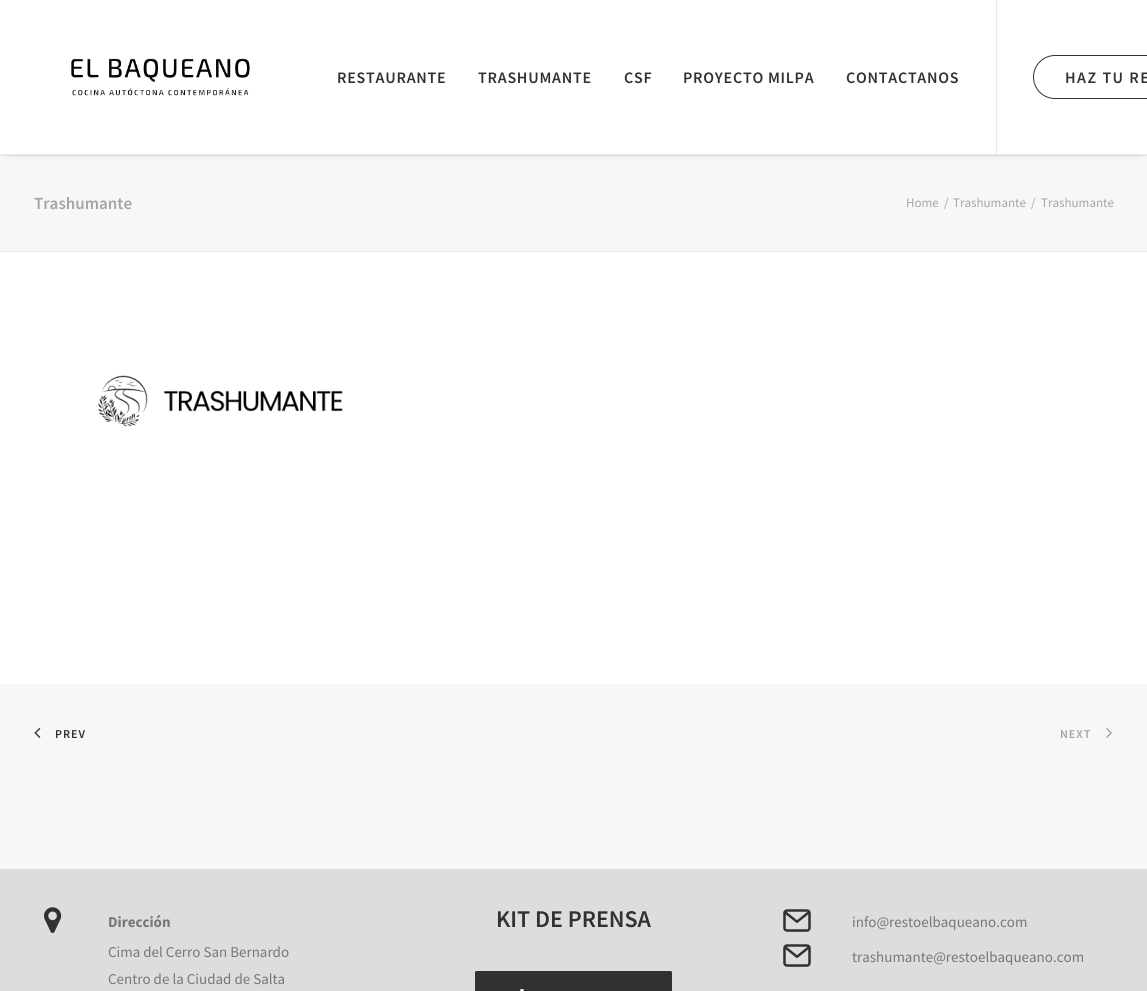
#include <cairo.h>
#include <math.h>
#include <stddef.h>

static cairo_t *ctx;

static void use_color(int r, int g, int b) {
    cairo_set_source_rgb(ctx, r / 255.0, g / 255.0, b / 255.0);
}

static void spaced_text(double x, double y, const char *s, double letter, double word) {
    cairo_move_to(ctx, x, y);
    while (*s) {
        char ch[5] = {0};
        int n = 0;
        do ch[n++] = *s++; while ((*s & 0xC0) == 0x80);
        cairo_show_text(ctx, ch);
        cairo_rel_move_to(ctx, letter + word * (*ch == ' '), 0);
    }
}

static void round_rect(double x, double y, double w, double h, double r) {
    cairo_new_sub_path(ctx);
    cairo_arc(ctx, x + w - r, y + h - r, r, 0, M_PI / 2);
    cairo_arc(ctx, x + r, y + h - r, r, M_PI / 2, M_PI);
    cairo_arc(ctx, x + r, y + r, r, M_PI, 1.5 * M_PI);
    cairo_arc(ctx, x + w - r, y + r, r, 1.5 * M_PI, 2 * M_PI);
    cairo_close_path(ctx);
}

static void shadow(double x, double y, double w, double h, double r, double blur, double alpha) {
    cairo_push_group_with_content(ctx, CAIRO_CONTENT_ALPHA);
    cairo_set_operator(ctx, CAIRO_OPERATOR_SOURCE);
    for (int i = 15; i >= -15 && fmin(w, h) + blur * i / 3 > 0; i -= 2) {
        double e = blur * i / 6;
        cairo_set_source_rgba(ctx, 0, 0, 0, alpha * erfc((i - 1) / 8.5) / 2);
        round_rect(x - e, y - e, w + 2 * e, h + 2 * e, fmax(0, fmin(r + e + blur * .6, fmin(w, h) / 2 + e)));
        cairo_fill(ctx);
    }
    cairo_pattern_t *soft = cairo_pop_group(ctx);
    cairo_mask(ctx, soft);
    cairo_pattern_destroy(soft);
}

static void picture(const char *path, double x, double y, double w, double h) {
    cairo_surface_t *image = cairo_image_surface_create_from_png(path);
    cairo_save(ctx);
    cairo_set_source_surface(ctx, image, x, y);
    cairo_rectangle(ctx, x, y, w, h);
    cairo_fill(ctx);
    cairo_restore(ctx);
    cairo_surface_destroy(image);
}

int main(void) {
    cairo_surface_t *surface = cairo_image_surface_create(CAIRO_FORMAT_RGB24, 1147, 991);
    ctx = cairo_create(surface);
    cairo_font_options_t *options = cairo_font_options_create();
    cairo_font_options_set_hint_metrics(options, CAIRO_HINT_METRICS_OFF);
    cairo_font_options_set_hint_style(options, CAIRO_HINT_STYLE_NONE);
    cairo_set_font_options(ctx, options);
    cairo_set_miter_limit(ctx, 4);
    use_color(247, 247, 247);
    cairo_paint(ctx);
    use_color(234, 234, 234);
    cairo_rectangle(ctx, 0, 155, 1147, 1);
    cairo_fill(ctx);
    use_color(0, 0, 0);
    shadow(8, 14, 1132, 135, 0, 5, 0.6);
    use_color(255, 255, 255);
    cairo_rectangle(ctx, 0, 0, 1147, 154);
    cairo_fill(ctx);
    use_color(234, 234, 234);
    cairo_rectangle(ctx, 0, 154, 1147, 1);
    cairo_fill(ctx);
    picture("img1.png", 71, 58, 179, 38);
    cairo_select_font_face(ctx, "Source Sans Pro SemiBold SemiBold", CAIRO_FONT_SLANT_NORMAL, CAIRO_FONT_WEIGHT_NORMAL);
    cairo_set_font_size(ctx, 16);
    use_color(48, 49, 51);
    spaced_text(337, 83, "RESTAURANTE", 0.75, 0);
    spaced_text(478, 83, "TRASHUMANTE", 0.75, 0);
    spaced_text(624, 83, "CSF", 0.75, 0);
    spaced_text(683, 83, "PROYECTO MILPA", 0.75, 0);
    spaced_text(846, 83, "CONTACTANOS", 0.75, 0);
    use_color(234, 234, 234);
    cairo_rectangle(ctx, 996, 0, 1, 154);
    cairo_fill(ctx);
    round_rect(1033.5, 55.5, 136, 43, 21.5);
    use_color(48, 49, 51);
    cairo_set_line_width(ctx, 1);
    cairo_stroke(ctx);
    spaced_text(1065, 83, "HAZ TU RE", 1.5, 0);
    use_color(234, 234, 234);
    cairo_rectangle(ctx, 0, 251, 1147, 1);
    cairo_fill(ctx);
    cairo_set_font_size(ctx, 17);
    use_color(164, 164, 164);
    cairo_move_to(ctx, 34, 209);
    cairo_show_text(ctx, "Trashumante");
    cairo_select_font_face(ctx, "Source Sans Pro", CAIRO_FONT_SLANT_NORMAL, CAIRO_FONT_WEIGHT_NORMAL);
    cairo_set_font_size(ctx, 13);
    cairo_move_to(ctx, 906, 207);
    cairo_show_text(ctx, "Home");
    cairo_move_to(ctx, 944, 207);
    cairo_show_text(ctx, "/");
    cairo_move_to(ctx, 953, 207);
    cairo_show_text(ctx, "Trashumante");
    cairo_move_to(ctx, 1031, 207);
    cairo_show_text(ctx, "/");
    cairo_move_to(ctx, 1041, 207);
    cairo_show_text(ctx, "Trashumante");
    use_color(255, 255, 255);
    cairo_rectangle(ctx, 0, 252, 1147, 432);
    cairo_fill(ctx);
    picture("img2.png", 98, 375, 245, 52);
    picture("img3.png", 34, 727, 7, 11);
    cairo_select_font_face(ctx, "Source Sans Pro SemiBold SemiBold", CAIRO_FONT_SLANT_NORMAL, CAIRO_FONT_WEIGHT_NORMAL);
    cairo_set_font_size(ctx, 12);
    use_color(48, 49, 51);
    spaced_text(55, 738, "PREV", 1, 0);
    use_color(164, 164, 164);
    spaced_text(1060, 738, "NEXT", 1, 0);
    picture("img4.png", 1106, 728, 6, 10);
    use_color(221, 221, 221);
    cairo_rectangle(ctx, 0, 869, 1147, 122);
    cairo_fill(ctx);
    picture("img5.png", 44, 907, 18, 26);
    cairo_select_font_face(ctx, "Source Sans Pro", CAIRO_FONT_SLANT_NORMAL, CAIRO_FONT_WEIGHT_BOLD);
    cairo_set_font_size(ctx, 15);
    use_color(119, 119, 119);
    cairo_move_to(ctx, 108, 927);
    cairo_show_text(ctx, "Dirección");
    cairo_select_font_face(ctx, "Source Sans Pro", CAIRO_FONT_SLANT_NORMAL, CAIRO_FONT_WEIGHT_NORMAL);
    cairo_move_to(ctx, 108, 957);
    cairo_show_text(ctx, "Cima del Cerro San Bernardo");
    cairo_move_to(ctx, 108, 984);
    cairo_show_text(ctx, "Centro de la Ciudad de Salta");
    cairo_select_font_face(ctx, "Source Sans Pro SemiBold SemiBold", CAIRO_FONT_SLANT_NORMAL, CAIRO_FONT_WEIGHT_NORMAL);
    cairo_set_font_size(ctx, 24);
    use_color(48, 49, 51);
    cairo_move_to(ctx, 496, 927);
    cairo_show_text(ctx, "KIT DE PRENSA");
    round_rect(475.5, 971.5, 196, 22, 1.5);
    cairo_fill_preserve(ctx);
    cairo_stroke(ctx);
    picture("img6.png", 520, 989, 4, 2);
    round_rect(475.5, 971.5, 196, 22, 1.5);
    cairo_stroke(ctx);
    picture("img7.png", 783, 909, 28, 23);
    cairo_select_font_face(ctx, "Source Sans Pro", CAIRO_FONT_SLANT_NORMAL, CAIRO_FONT_WEIGHT_NORMAL);
    cairo_set_font_size(ctx, 15);
    use_color(119, 119, 119);
    cairo_move_to(ctx, 852, 927);
    cairo_show_text(ctx, "info@restoelbaqueano.com");
    picture("img7.png", 783, 944, 28, 23);
    cairo_move_to(ctx, 852, 962);
    cairo_show_text(ctx, "trashumante@restoelbaqueano.com");
    cairo_surface_write_to_png(surface, "result.png");
    cairo_font_options_destroy(options);
    cairo_destroy(ctx);
    cairo_surface_destroy(surface);
    return 0;
}
